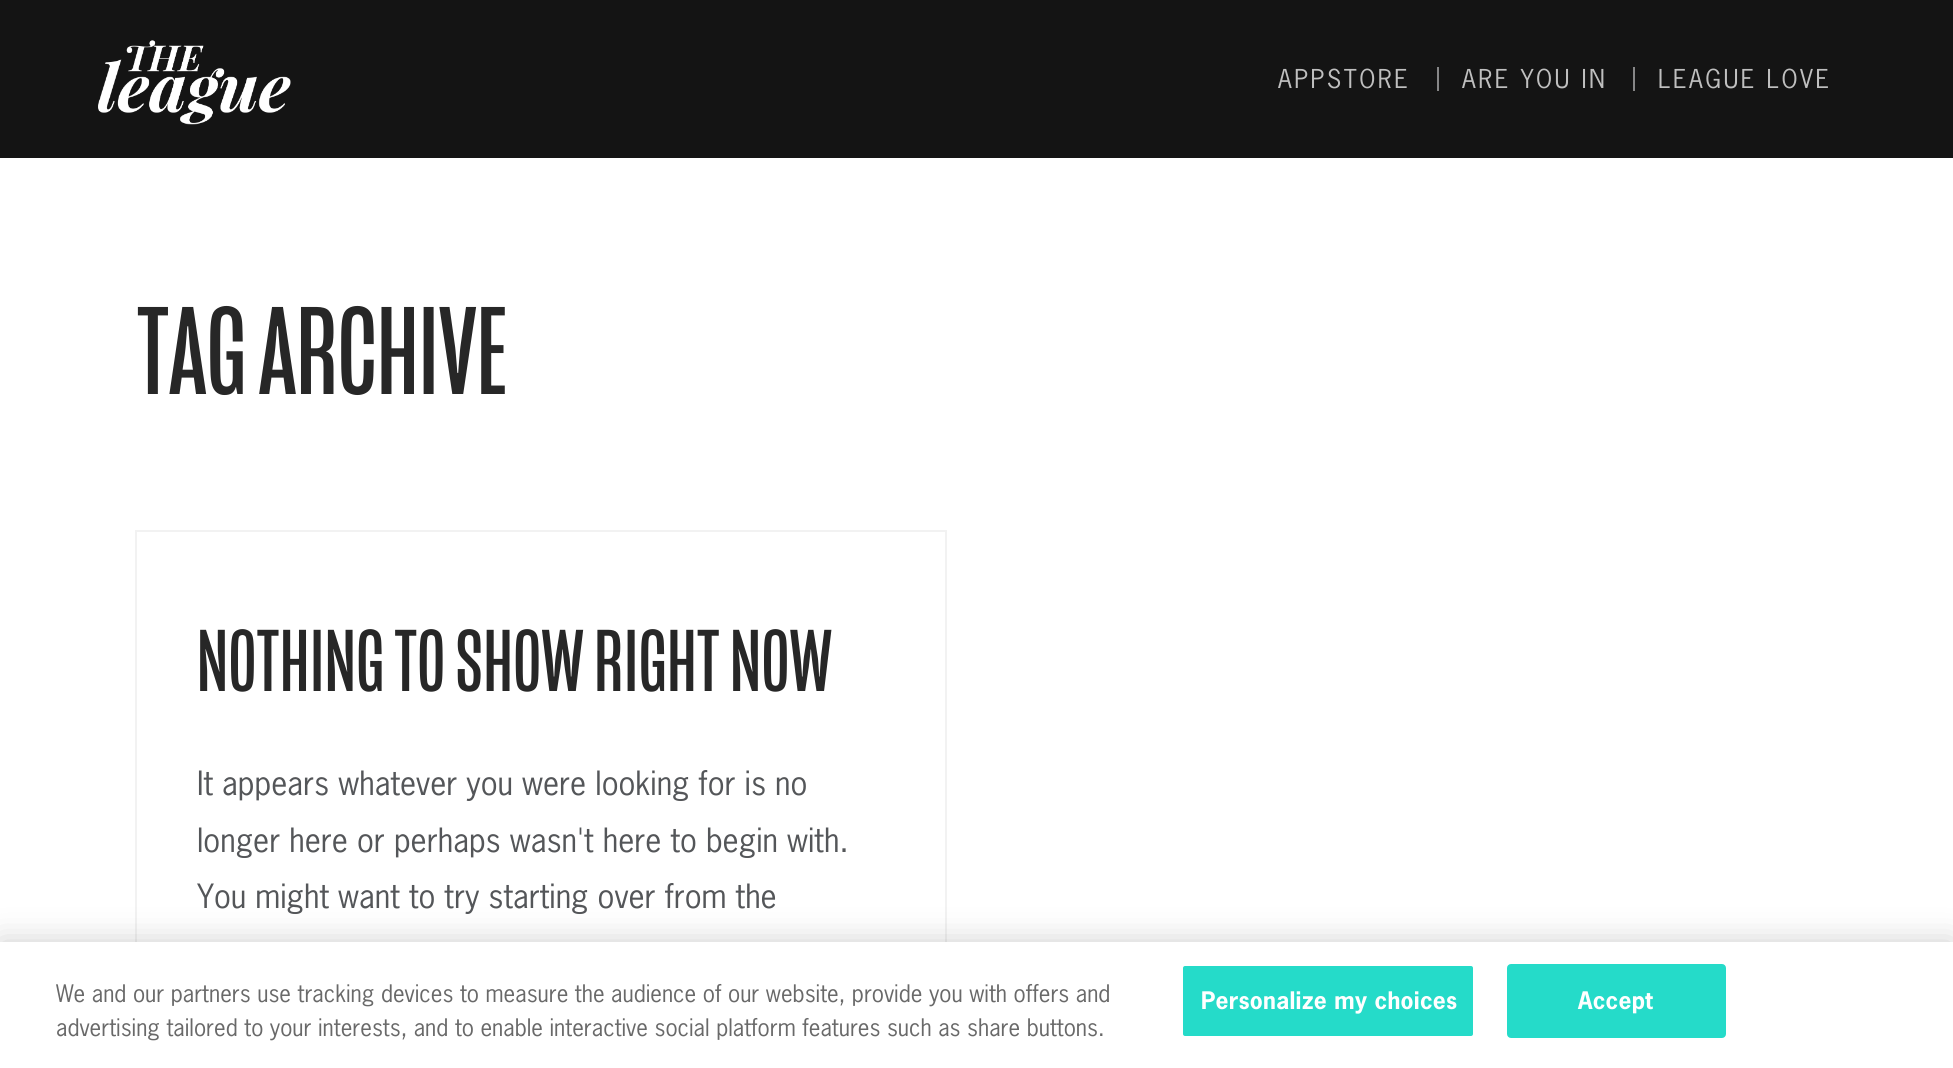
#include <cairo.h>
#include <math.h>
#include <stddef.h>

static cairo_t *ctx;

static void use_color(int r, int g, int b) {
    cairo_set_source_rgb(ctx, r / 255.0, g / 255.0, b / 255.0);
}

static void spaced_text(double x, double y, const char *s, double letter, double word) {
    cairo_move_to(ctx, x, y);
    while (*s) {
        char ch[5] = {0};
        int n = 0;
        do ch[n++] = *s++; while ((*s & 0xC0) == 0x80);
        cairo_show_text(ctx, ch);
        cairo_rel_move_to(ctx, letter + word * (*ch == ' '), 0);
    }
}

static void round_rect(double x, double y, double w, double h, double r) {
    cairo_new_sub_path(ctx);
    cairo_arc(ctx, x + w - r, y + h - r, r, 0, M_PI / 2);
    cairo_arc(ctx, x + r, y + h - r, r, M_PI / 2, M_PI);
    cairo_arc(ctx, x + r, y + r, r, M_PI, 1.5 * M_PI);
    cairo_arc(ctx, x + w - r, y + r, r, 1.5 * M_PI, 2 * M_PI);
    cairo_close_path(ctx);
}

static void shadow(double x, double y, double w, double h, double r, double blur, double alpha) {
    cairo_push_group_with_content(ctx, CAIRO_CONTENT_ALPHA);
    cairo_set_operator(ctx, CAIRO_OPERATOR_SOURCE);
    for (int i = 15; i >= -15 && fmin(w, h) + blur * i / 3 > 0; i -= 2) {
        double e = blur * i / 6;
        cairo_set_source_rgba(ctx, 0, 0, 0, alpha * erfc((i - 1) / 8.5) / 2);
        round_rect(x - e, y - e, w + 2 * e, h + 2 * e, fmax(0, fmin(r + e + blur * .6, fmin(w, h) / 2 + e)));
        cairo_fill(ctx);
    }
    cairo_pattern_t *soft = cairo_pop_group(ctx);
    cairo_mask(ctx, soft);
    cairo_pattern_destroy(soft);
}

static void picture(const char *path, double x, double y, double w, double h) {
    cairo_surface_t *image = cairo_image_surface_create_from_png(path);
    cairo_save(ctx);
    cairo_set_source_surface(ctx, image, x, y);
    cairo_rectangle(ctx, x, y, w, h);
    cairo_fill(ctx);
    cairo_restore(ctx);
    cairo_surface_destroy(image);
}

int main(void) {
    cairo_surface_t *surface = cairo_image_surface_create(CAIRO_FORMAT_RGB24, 1953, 1068);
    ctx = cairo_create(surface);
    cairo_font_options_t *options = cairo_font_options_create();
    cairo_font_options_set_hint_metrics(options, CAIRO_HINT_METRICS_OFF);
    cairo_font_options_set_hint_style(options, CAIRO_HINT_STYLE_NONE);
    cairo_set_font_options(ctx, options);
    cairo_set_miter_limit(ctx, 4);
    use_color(255, 255, 255);
    cairo_paint(ctx);
    use_color(20, 20, 20);
    cairo_rectangle(ctx, 0, 0, 1953, 158);
    cairo_fill(ctx);
    picture("img1.png", 98, 40, 193, 85);
    use_color(134, 134, 135);
    cairo_rectangle(ctx, 1437, 67, 2, 24);
    cairo_fill(ctx);
    cairo_select_font_face(ctx, "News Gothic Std", CAIRO_FONT_SLANT_NORMAL, CAIRO_FONT_WEIGHT_NORMAL);
    cairo_set_font_size(ctx, 24.5);
    use_color(191, 191, 191);
    spaced_text(1278, 88, "APPSTORE", 2.5, 0);
    use_color(134, 134, 135);
    cairo_rectangle(ctx, 1633, 67, 2, 24);
    cairo_fill(ctx);
    use_color(191, 191, 191);
    spaced_text(1462, 88, "ARE YOU IN", 2.5, 0);
    spaced_text(1658, 88, "LEAGUE LOVE", 2.5, 0);
    cairo_select_font_face(ctx, "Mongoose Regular", CAIRO_FONT_SLANT_NORMAL, CAIRO_FONT_WEIGHT_NORMAL);
    cairo_set_font_size(ctx, 128);
    use_color(39, 39, 39);
    cairo_move_to(ctx, 137, 394);
    cairo_show_text(ctx, "TAG ARCHIVE");
    cairo_rectangle(ctx, 136, 531, 810, 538);
    use_color(242, 242, 242);
    cairo_stroke(ctx);
    cairo_set_font_size(ctx, 90);
    use_color(39, 39, 39);
    spaced_text(197, 691, "NOTHING TO SHOW RIGHT NOW", 0.75, 0);
    cairo_select_font_face(ctx, "News Gothic Std", CAIRO_FONT_SLANT_NORMAL, CAIRO_FONT_WEIGHT_NORMAL);
    cairo_set_font_size(ctx, 31.5);
    use_color(84, 86, 89);
    cairo_move_to(ctx, 197, 795);
    cairo_show_text(ctx, "It appears whatever you were looking for is no");
    cairo_move_to(ctx, 197, 852);
    cairo_show_text(ctx, "longer here or perhaps wasn't here to begin with.");
    cairo_move_to(ctx, 197, 908);
    cairo_show_text(ctx, "You might want to try starting over from the");
    use_color(0, 0, 0);
    shadow(0, 942, 1953, 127, 0, 16, 0.2);
    use_color(255, 255, 255);
    cairo_rectangle(ctx, 0, 942, 1953, 126);
    cairo_fill(ctx);
    cairo_set_font_size(ctx, 22.75);
    use_color(105, 105, 105);
    cairo_move_to(ctx, 56, 1002);
    cairo_show_text(ctx, "We and our partners use tracking devices to measure the audience of our website, provide you with offers and");
    cairo_move_to(ctx, 56, 1036);
    cairo_show_text(ctx, "advertising tailored to your interests, and to enable interactive social platform features such as share buttons.");
    use_color(37, 219, 201);
    round_rect(1182, 965, 292, 72, 3);
    cairo_fill_preserve(ctx);
    use_color(255, 255, 255);
    cairo_stroke(ctx);
    cairo_select_font_face(ctx, "News Gothic Std", CAIRO_FONT_SLANT_NORMAL, CAIRO_FONT_WEIGHT_BOLD);
    spaced_text(1201, 1009, "Personalize my choices", 0.25, 0);
    use_color(37, 219, 201);
    round_rect(1508, 965, 217, 72, 3);
    cairo_fill_preserve(ctx);
    cairo_stroke(ctx);
    use_color(255, 255, 255);
    spaced_text(1578, 1009, "Accept", 0.25, 0);
    cairo_surface_write_to_png(surface, "result.png");
    cairo_font_options_destroy(options);
    cairo_destroy(ctx);
    cairo_surface_destroy(surface);
    return 0;
}
